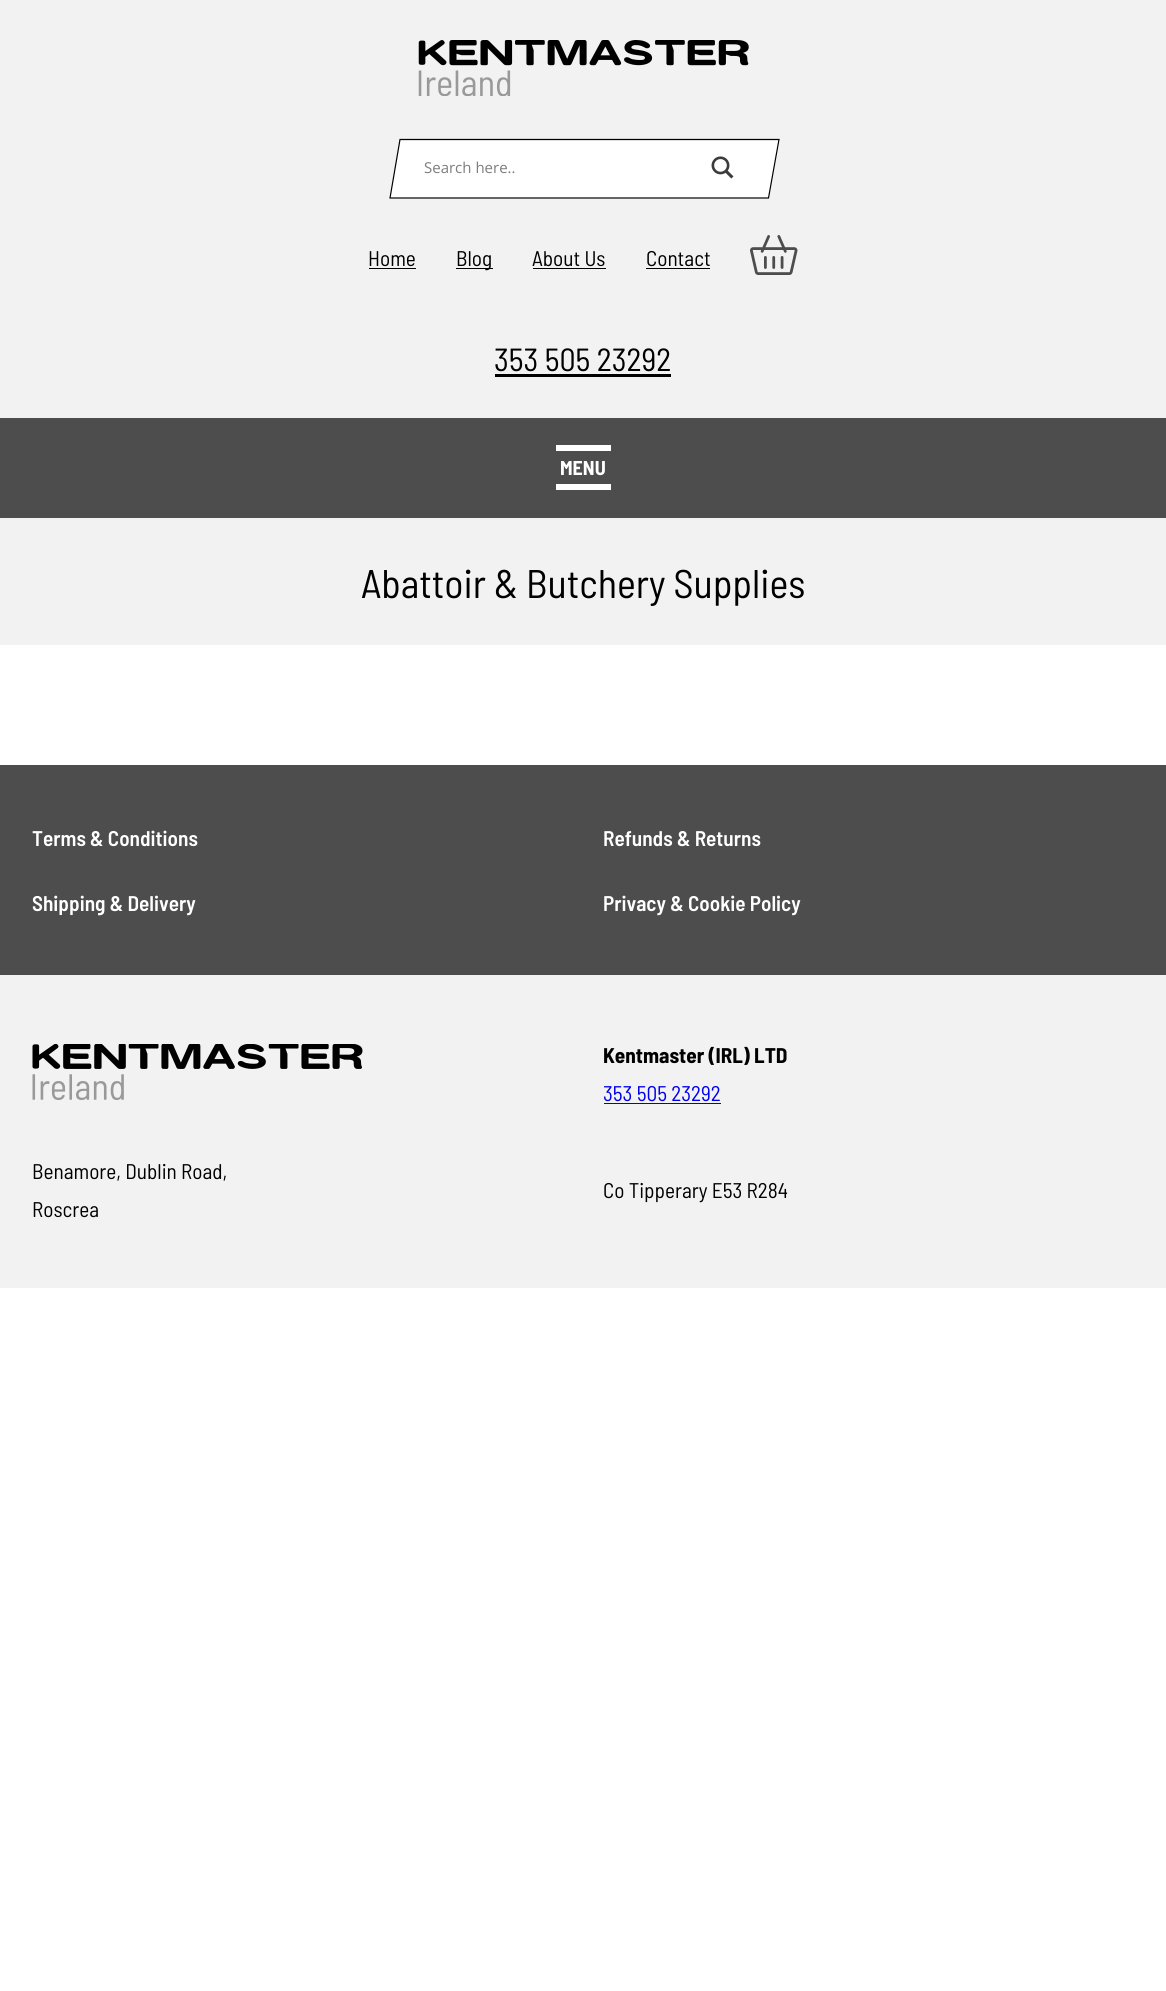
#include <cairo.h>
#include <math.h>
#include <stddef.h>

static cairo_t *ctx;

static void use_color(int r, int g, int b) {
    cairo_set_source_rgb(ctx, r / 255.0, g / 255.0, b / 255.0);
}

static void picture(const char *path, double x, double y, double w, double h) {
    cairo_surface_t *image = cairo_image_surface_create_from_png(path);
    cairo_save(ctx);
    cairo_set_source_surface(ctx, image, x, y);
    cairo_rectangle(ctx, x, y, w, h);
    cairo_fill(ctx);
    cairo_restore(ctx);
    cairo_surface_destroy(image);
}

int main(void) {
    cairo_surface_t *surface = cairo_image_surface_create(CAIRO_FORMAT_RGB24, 1166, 1991);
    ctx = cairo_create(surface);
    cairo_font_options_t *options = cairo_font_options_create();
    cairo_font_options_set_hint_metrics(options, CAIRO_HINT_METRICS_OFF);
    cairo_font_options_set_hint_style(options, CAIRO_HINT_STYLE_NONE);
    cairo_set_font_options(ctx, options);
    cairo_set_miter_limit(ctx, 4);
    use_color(255, 255, 255);
    cairo_paint(ctx);
    use_color(242, 242, 242);
    cairo_rectangle(ctx, 0, 0, 1166, 418);
    cairo_fill(ctx);
    picture("img1.png", 418, 40, 331, 56);
    use_color(255, 255, 255);
    cairo_new_path(ctx);
    cairo_move_to(ctx, 400, 139);
    cairo_line_to(ctx, 780, 139);
    cairo_line_to(ctx, 769, 199);
    cairo_line_to(ctx, 389, 199);
    cairo_close_path(ctx);
    cairo_fill(ctx);
    cairo_new_path(ctx);
    cairo_move_to(ctx, 400, 139.5);
    cairo_line_to(ctx, 779, 139.5);
    cairo_line_to(ctx, 768.5, 198);
    cairo_line_to(ctx, 390, 198);
    cairo_close_path(ctx);
    use_color(0, 0, 0);
    cairo_set_line_width(ctx, 1.2);
    cairo_stroke(ctx);
    cairo_select_font_face(ctx, "Open Sans", CAIRO_FONT_SLANT_NORMAL, CAIRO_FONT_WEIGHT_NORMAL);
    cairo_set_font_size(ctx, 15);
    use_color(125, 125, 125);
    cairo_move_to(ctx, 424, 173);
    cairo_show_text(ctx, "Search here..");
    picture("img2.png", 711, 156, 23, 23);
    cairo_select_font_face(ctx, "Barlow Semi Condensed", CAIRO_FONT_SLANT_NORMAL, CAIRO_FONT_WEIGHT_NORMAL);
    cairo_set_font_size(ctx, 21.25);
    use_color(0, 0, 0);
    cairo_move_to(ctx, 368, 266);
    cairo_show_text(ctx, "Home");
    cairo_rectangle(ctx, 369, 268, 47, 1);
    cairo_fill(ctx);
    cairo_rectangle(ctx, 456, 268, 37, 1);
    cairo_fill(ctx);
    cairo_move_to(ctx, 456, 266);
    cairo_show_text(ctx, "Blog");
    cairo_move_to(ctx, 532, 266);
    cairo_show_text(ctx, "About Us");
    cairo_rectangle(ctx, 533, 268, 73, 1);
    cairo_fill(ctx);
    cairo_move_to(ctx, 646, 266);
    cairo_show_text(ctx, "Contact");
    cairo_rectangle(ctx, 646, 268, 64, 1);
    cairo_fill(ctx);
    picture("img3.png", 750, 235, 48, 40);
    cairo_set_font_size(ctx, 32);
    cairo_move_to(ctx, 494, 371);
    cairo_show_text(ctx, "353 505 23292");
    cairo_rectangle(ctx, 495, 374, 176, 3);
    cairo_fill(ctx);
    use_color(77, 77, 77);
    cairo_rectangle(ctx, 0, 418, 1166, 100);
    cairo_fill(ctx);
    use_color(255, 255, 255);
    cairo_rectangle(ctx, 556, 445, 55, 6);
    cairo_fill(ctx);
    cairo_select_font_face(ctx, "Barlow Semi Condensed", CAIRO_FONT_SLANT_NORMAL, CAIRO_FONT_WEIGHT_BOLD);
    cairo_set_font_size(ctx, 20);
    cairo_move_to(ctx, 560, 475);
    cairo_show_text(ctx, "MENU");
    cairo_rectangle(ctx, 556, 484, 55, 6);
    cairo_fill(ctx);
    use_color(242, 242, 242);
    cairo_rectangle(ctx, 0, 518, 1166, 127);
    cairo_fill(ctx);
    cairo_select_font_face(ctx, "Barlow Semi Condensed", CAIRO_FONT_SLANT_NORMAL, CAIRO_FONT_WEIGHT_NORMAL);
    cairo_set_font_size(ctx, 40);
    use_color(0, 0, 0);
    cairo_move_to(ctx, 361, 598);
    cairo_show_text(ctx, "Abattoir & Butchery Supplies");
    use_color(77, 77, 77);
    cairo_rectangle(ctx, 0, 765, 1166, 210);
    cairo_fill(ctx);
    cairo_select_font_face(ctx, "Barlow Semi Condensed SemiBold", CAIRO_FONT_SLANT_NORMAL, CAIRO_FONT_WEIGHT_NORMAL);
    cairo_set_font_size(ctx, 21.25);
    use_color(255, 255, 255);
    cairo_move_to(ctx, 32, 846);
    cairo_show_text(ctx, "Terms & Conditions");
    cairo_move_to(ctx, 603, 846);
    cairo_show_text(ctx, "Refunds & Returns");
    cairo_move_to(ctx, 32, 911);
    cairo_show_text(ctx, "Shipping & Delivery");
    cairo_move_to(ctx, 603, 911);
    cairo_show_text(ctx, "Privacy & Cookie Policy");
    use_color(242, 242, 242);
    cairo_rectangle(ctx, 0, 975, 1166, 313);
    cairo_fill(ctx);
    picture("img4.png", 32, 1044, 331, 56);
    cairo_select_font_face(ctx, "Barlow Semi Condensed", CAIRO_FONT_SLANT_NORMAL, CAIRO_FONT_WEIGHT_BOLD);
    use_color(0, 0, 0);
    cairo_move_to(ctx, 603, 1063);
    cairo_show_text(ctx, "Kentmaster (IRL) LTD");
    cairo_select_font_face(ctx, "Barlow Semi Condensed", CAIRO_FONT_SLANT_NORMAL, CAIRO_FONT_WEIGHT_NORMAL);
    use_color(0, 0, 238);
    cairo_move_to(ctx, 603, 1101);
    cairo_show_text(ctx, "353 505 23292");
    cairo_rectangle(ctx, 604, 1103, 117, 1);
    cairo_fill(ctx);
    use_color(0, 0, 0);
    cairo_move_to(ctx, 32, 1179);
    cairo_show_text(ctx, "Benamore, Dublin Road,");
    cairo_move_to(ctx, 32, 1217);
    cairo_show_text(ctx, "Roscrea");
    cairo_move_to(ctx, 603, 1198);
    cairo_show_text(ctx, "Co Tipperary E53 R284");
    cairo_surface_write_to_png(surface, "result.png");
    cairo_font_options_destroy(options);
    cairo_destroy(ctx);
    cairo_surface_destroy(surface);
    return 0;
}
